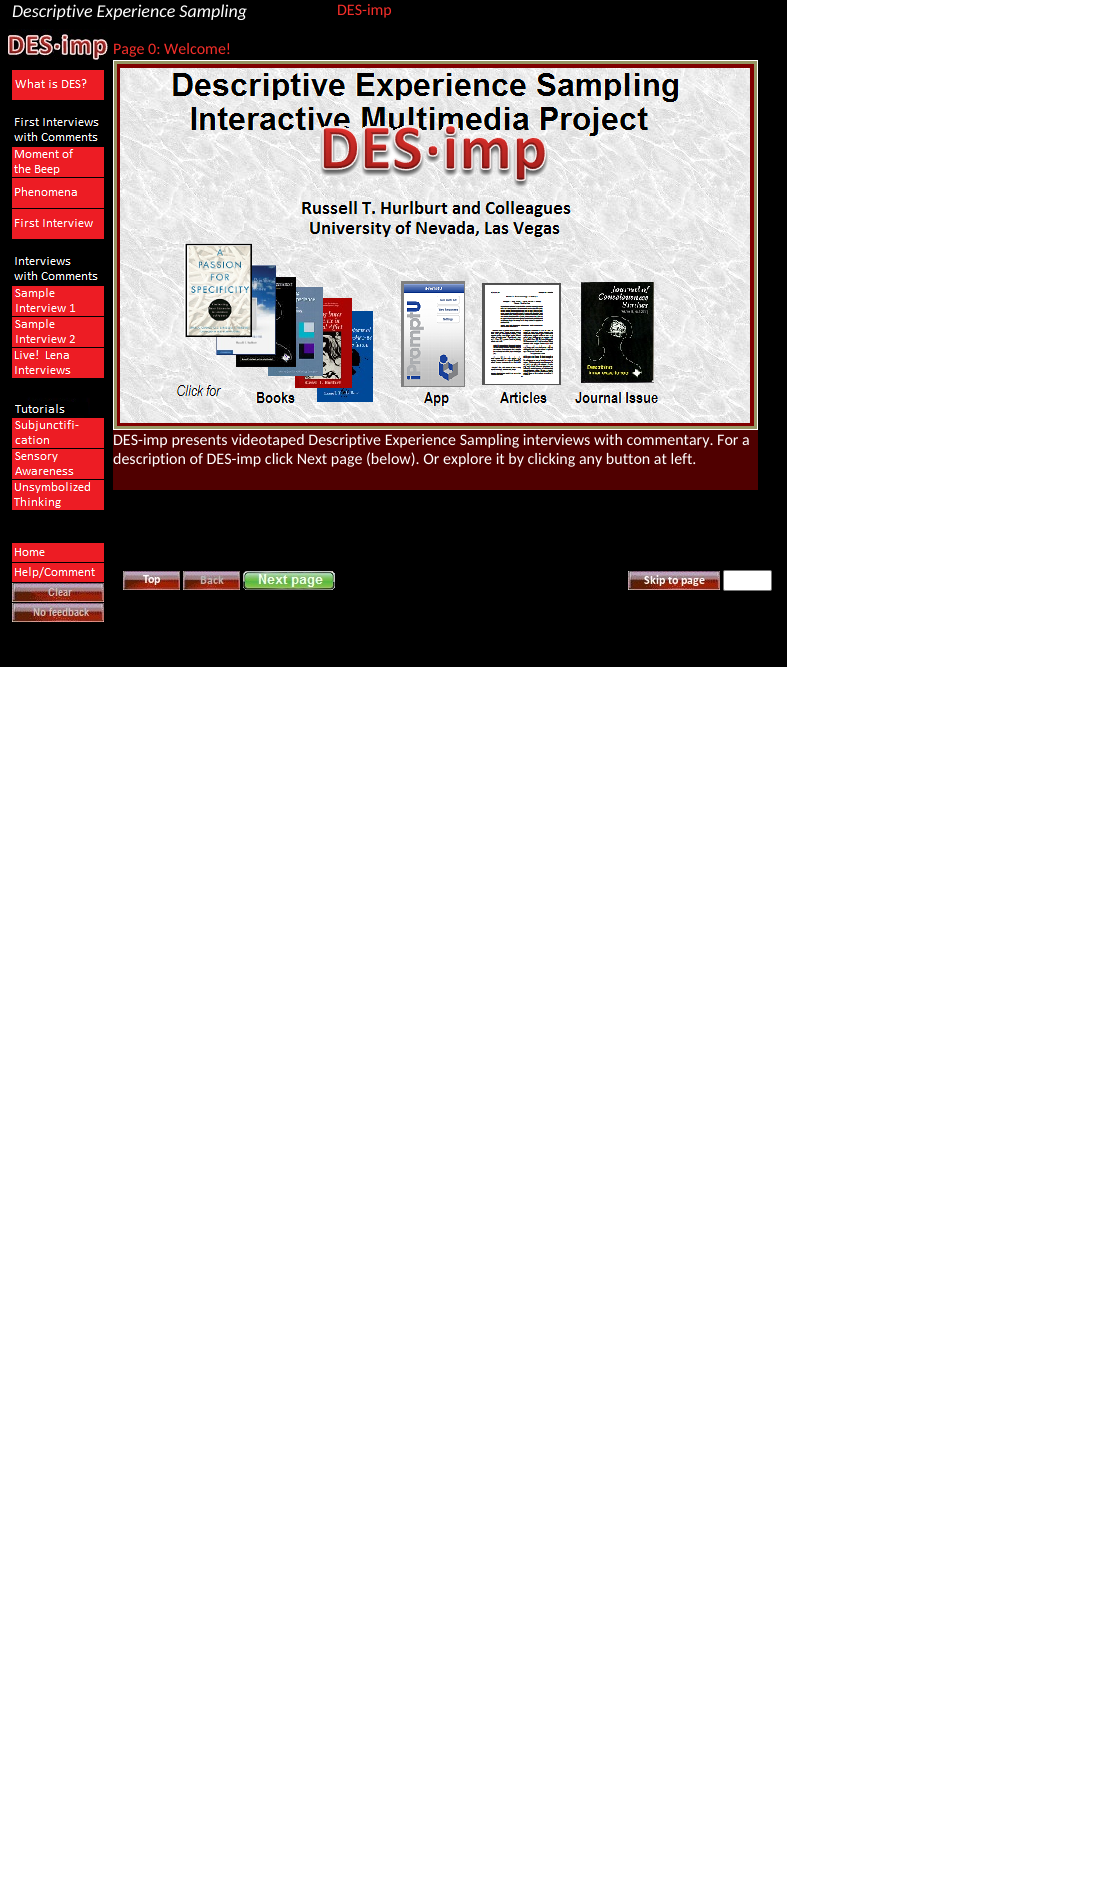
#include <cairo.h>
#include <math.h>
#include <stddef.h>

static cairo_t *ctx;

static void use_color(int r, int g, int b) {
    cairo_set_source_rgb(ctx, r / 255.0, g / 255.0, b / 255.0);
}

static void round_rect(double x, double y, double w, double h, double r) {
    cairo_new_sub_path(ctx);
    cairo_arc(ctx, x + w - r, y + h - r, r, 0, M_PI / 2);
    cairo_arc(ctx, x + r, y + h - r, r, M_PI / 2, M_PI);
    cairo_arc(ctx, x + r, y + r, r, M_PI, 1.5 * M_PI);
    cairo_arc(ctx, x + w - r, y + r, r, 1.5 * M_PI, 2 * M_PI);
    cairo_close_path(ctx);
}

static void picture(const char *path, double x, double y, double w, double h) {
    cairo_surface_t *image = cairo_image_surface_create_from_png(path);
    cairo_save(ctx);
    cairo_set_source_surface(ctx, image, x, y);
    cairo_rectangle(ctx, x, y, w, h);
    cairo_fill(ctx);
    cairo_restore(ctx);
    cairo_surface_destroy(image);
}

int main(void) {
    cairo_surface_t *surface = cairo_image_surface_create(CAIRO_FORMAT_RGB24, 1097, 1879);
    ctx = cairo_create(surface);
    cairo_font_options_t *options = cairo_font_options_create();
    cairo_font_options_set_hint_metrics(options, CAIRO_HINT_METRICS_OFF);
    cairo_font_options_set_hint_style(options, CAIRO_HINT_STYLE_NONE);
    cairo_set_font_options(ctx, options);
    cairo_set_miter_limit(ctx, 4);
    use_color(255, 255, 255);
    cairo_paint(ctx);
    use_color(0, 0, 0);
    cairo_rectangle(ctx, 0, 0, 787, 39);
    cairo_fill(ctx);
    cairo_select_font_face(ctx, "Carlito", CAIRO_FONT_SLANT_ITALIC, CAIRO_FONT_WEIGHT_NORMAL);
    cairo_set_font_size(ctx, 18);
    use_color(255, 255, 255);
    cairo_move_to(ctx, 12, 17);
    cairo_show_text(ctx, "Descriptive Experience Sampling");
    cairo_select_font_face(ctx, "Carlito", CAIRO_FONT_SLANT_NORMAL, CAIRO_FONT_WEIGHT_NORMAL);
    cairo_set_font_size(ctx, 16);
    use_color(244, 46, 41);
    cairo_move_to(ctx, 337, 15);
    cairo_show_text(ctx, "DES-imp");
    use_color(0, 0, 0);
    cairo_rectangle(ctx, 0, 35, 8, 25);
    cairo_fill(ctx);
    cairo_rectangle(ctx, 108, 35, 5, 25);
    cairo_fill(ctx);
    picture("img1.png", 8, 29, 100, 31);
    cairo_rectangle(ctx, 113, 39, 674, 21);
    cairo_fill(ctx);
    use_color(244, 46, 41);
    cairo_move_to(ctx, 113, 54);
    cairo_show_text(ctx, "Page 0: Welcome!");
    use_color(0, 0, 0);
    cairo_rectangle(ctx, 0, 60, 113, 452);
    cairo_fill(ctx);
    picture("img2.png", 12, 70, 92, 30);
    picture("img3.png", 14, 118, 85, 29);
    picture("img4.png", 12, 147, 92, 30);
    picture("img5.png", 12, 178, 92, 30);
    picture("img6.png", 12, 209, 92, 30);
    picture("img7.png", 14, 257, 84, 29);
    picture("img8.png", 12, 286, 92, 30);
    picture("img9.png", 12, 317, 92, 30);
    picture("img10.png", 12, 348, 92, 30);
    picture("img11.png", 15, 397, 75, 21);
    picture("img12.png", 12, 418, 92, 30);
    picture("img13.png", 12, 449, 92, 30);
    picture("img14.png", 12, 480, 92, 30);
    use_color(150, 150, 100);
    cairo_rectangle(ctx, 114, 61, 3, 368);
    cairo_fill(ctx);
    cairo_rectangle(ctx, 117, 61, 638, 3);
    cairo_fill(ctx);
    cairo_rectangle(ctx, 754, 61, 3, 368);
    cairo_fill(ctx);
    use_color(0, 0, 0);
    cairo_rectangle(ctx, 758, 60, 29, 452);
    cairo_fill(ctx);
    use_color(128, 0, 0);
    cairo_rectangle(ctx, 117, 64, 3, 365);
    cairo_fill(ctx);
    cairo_rectangle(ctx, 120, 64, 630, 4);
    cairo_fill(ctx);
    cairo_rectangle(ctx, 750, 64, 4, 365);
    cairo_fill(ctx);
    picture("img15.png", 120, 68, 630, 355);
    cairo_rectangle(ctx, 120, 423, 630, 3);
    cairo_fill(ctx);
    use_color(150, 150, 100);
    cairo_rectangle(ctx, 117, 426, 638, 3);
    cairo_fill(ctx);
    use_color(80, 0, 0);
    cairo_rectangle(ctx, 113, 430, 645, 60);
    cairo_fill(ctx);
    use_color(255, 255, 255);
    cairo_move_to(ctx, 113, 445);
    cairo_show_text(ctx, "DES-imp presents videotaped Descriptive Experience Sampling interviews with commentary. For a");
    cairo_move_to(ctx, 113, 464);
    cairo_show_text(ctx, "description of DES-imp click Next page (below). Or explore it by clicking any button at left.");
    use_color(0, 0, 0);
    cairo_rectangle(ctx, 113, 490, 645, 22);
    cairo_fill(ctx);
    cairo_rectangle(ctx, 0, 512, 787, 155);
    cairo_fill(ctx);
    picture("img16.png", 12, 543, 92, 19);
    picture("img17.png", 12, 563, 92, 19);
    picture("img18.png", 12, 583, 92, 19);
    picture("img19.png", 12, 603, 92, 19);
    picture("img20.png", 123, 571, 57, 19);
    picture("img21.png", 183, 571, 57, 19);
    picture("img22.png", 243, 571, 92, 19);
    picture("img23.png", 628, 571, 92, 19);
    use_color(255, 255, 255);
    round_rect(723.5, 570.5, 48, 20, 1.5);
    cairo_fill_preserve(ctx);
    use_color(118, 118, 118);
    cairo_set_line_width(ctx, 1);
    cairo_stroke(ctx);
    cairo_surface_write_to_png(surface, "result.png");
    cairo_font_options_destroy(options);
    cairo_destroy(ctx);
    cairo_surface_destroy(surface);
    return 0;
}
